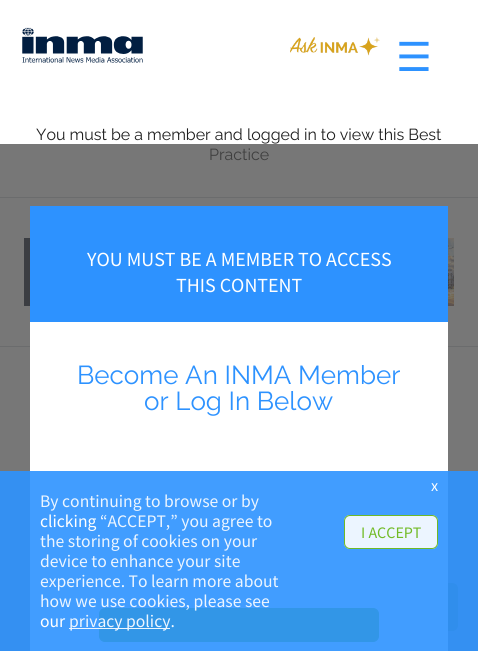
#include <cairo.h>
#include <math.h>
#include <stddef.h>

static cairo_t *ctx;

static void use_color(int r, int g, int b) {
    cairo_set_source_rgb(ctx, r / 255.0, g / 255.0, b / 255.0);
}

static void round_rect(double x, double y, double w, double h, double r) {
    cairo_new_sub_path(ctx);
    cairo_arc(ctx, x + w - r, y + h - r, r, 0, M_PI / 2);
    cairo_arc(ctx, x + r, y + h - r, r, M_PI / 2, M_PI);
    cairo_arc(ctx, x + r, y + r, r, M_PI, 1.5 * M_PI);
    cairo_arc(ctx, x + w - r, y + r, r, 1.5 * M_PI, 2 * M_PI);
    cairo_close_path(ctx);
}

static void picture(const char *path, double x, double y, double w, double h) {
    cairo_surface_t *image = cairo_image_surface_create_from_png(path);
    cairo_save(ctx);
    cairo_set_source_surface(ctx, image, x, y);
    cairo_rectangle(ctx, x, y, w, h);
    cairo_fill(ctx);
    cairo_restore(ctx);
    cairo_surface_destroy(image);
}

int main(void) {
    cairo_surface_t *surface = cairo_image_surface_create(CAIRO_FORMAT_RGB24, 478, 651);
    ctx = cairo_create(surface);
    cairo_font_options_t *options = cairo_font_options_create();
    cairo_font_options_set_hint_metrics(options, CAIRO_HINT_METRICS_OFF);
    cairo_font_options_set_hint_style(options, CAIRO_HINT_STYLE_NONE);
    cairo_set_font_options(ctx, options);
    cairo_set_miter_limit(ctx, 4);
    use_color(255, 255, 255);
    cairo_paint(ctx);
    use_color(119, 119, 119);
    cairo_rectangle(ctx, 0, 144, 478, 507);
    cairo_fill(ctx);
    picture("img1.png", 22, 27, 121, 36);
    picture("img2.png", 290, 37, 90, 19);
    cairo_select_font_face(ctx, "DejaVu Sans", CAIRO_FONT_SLANT_NORMAL, CAIRO_FONT_WEIGHT_NORMAL);
    cairo_set_font_size(ctx, 40);
    use_color(45, 146, 255);
    cairo_move_to(ctx, 396, 71);
    cairo_show_text(ctx, "☰");
    use_color(80, 100, 59);
    round_rect(357.5, 583.5, 100, 47, 5.5);
    cairo_fill_preserve(ctx);
    cairo_set_line_width(ctx, 1);
    cairo_stroke(ctx);
    use_color(107, 108, 109);
    cairo_rectangle(ctx, 0, 197, 478, 1);
    cairo_fill(ctx);
    cairo_select_font_face(ctx, "Raleway", CAIRO_FONT_SLANT_NORMAL, CAIRO_FONT_WEIGHT_NORMAL);
    cairo_set_font_size(ctx, 16);
    use_color(30, 30, 30);
    cairo_move_to(ctx, 36, 140);
    cairo_show_text(ctx, "You must be a member and logged in to view this Best");
    use_color(63, 63, 63);
    cairo_move_to(ctx, 209, 160);
    cairo_show_text(ctx, "Practice");
    use_color(107, 108, 109);
    cairo_rectangle(ctx, 0, 346, 478, 1);
    cairo_fill(ctx);
    picture("img3.png", 24, 238, 430, 68);
    use_color(255, 255, 255);
    cairo_rectangle(ctx, 30, 322, 418, 329);
    cairo_fill(ctx);
    use_color(45, 146, 255);
    cairo_rectangle(ctx, 30, 206, 418, 116);
    cairo_fill(ctx);
    cairo_select_font_face(ctx, "Source Sans Pro", CAIRO_FONT_SLANT_NORMAL, CAIRO_FONT_WEIGHT_NORMAL);
    cairo_set_font_size(ctx, 20);
    use_color(255, 255, 255);
    cairo_move_to(ctx, 87, 266);
    cairo_show_text(ctx, "YOU MUST BE A MEMBER TO ACCESS");
    cairo_move_to(ctx, 176, 292);
    cairo_show_text(ctx, "THIS CONTENT");
    cairo_select_font_face(ctx, "Raleway", CAIRO_FONT_SLANT_NORMAL, CAIRO_FONT_WEIGHT_NORMAL);
    cairo_set_font_size(ctx, 26);
    use_color(45, 146, 255);
    cairo_move_to(ctx, 77, 384);
    cairo_show_text(ctx, "Become An INMA Member");
    cairo_move_to(ctx, 144, 410);
    cairo_show_text(ctx, "or Log In Below");
    use_color(98, 179, 15);
    round_rect(99.5, 608.5, 279, 33, 5.5);
    cairo_fill_preserve(ctx);
    cairo_stroke(ctx);
    cairo_set_source_rgba(ctx, 0.176, 0.573, 1, 0.9);
    cairo_rectangle(ctx, 0, 471, 478, 180);
    cairo_fill(ctx);
    cairo_select_font_face(ctx, "Source Sans Pro", CAIRO_FONT_SLANT_NORMAL, CAIRO_FONT_WEIGHT_NORMAL);
    cairo_set_font_size(ctx, 17.6);
    use_color(236, 245, 255);
    cairo_move_to(ctx, 40, 507);
    cairo_show_text(ctx, "By continuing to browse or by");
    use_color(255, 255, 255);
    cairo_move_to(ctx, 40, 527);
    cairo_show_text(ctx, "clicking");
    use_color(236, 245, 255);
    cairo_move_to(ctx, 100, 527);
    cairo_show_text(ctx, "“ACCEPT,” you agree to");
    cairo_move_to(ctx, 40, 547);
    cairo_show_text(ctx, "the storing of cookies on your");
    cairo_move_to(ctx, 40, 567);
    cairo_show_text(ctx, "device to enhance your site");
    cairo_move_to(ctx, 40, 587);
    cairo_show_text(ctx, "experience. To learn more about");
    cairo_move_to(ctx, 40, 607);
    cairo_show_text(ctx, "how we use cookies, please see");
    use_color(255, 255, 255);
    cairo_move_to(ctx, 40, 627);
    cairo_show_text(ctx, "our");
    cairo_set_source_rgba(ctx, 1, 1, 1, 0.9);
    cairo_rectangle(ctx, 69, 628, 101, 1);
    cairo_fill(ctx);
    use_color(236, 245, 255);
    cairo_move_to(ctx, 69, 627);
    cairo_show_text(ctx, "privacy policy.");
    cairo_set_font_size(ctx, 16);
    use_color(255, 255, 255);
    cairo_move_to(ctx, 431, 491);
    cairo_show_text(ctx, "x");
    cairo_set_source_rgba(ctx, 1, 1, 1, 0.9);
    round_rect(344, 515, 94, 34, 6);
    cairo_fill(ctx);
    round_rect(344.5, 515.5, 93, 33, 5.5);
    cairo_set_source_rgba(ctx, 0.384, 0.702, 0.059, 0.9);
    cairo_stroke(ctx);
    use_color(114, 187, 39);
    cairo_move_to(ctx, 361, 538);
    cairo_show_text(ctx, "I ACCEPT");
    cairo_surface_write_to_png(surface, "result.png");
    cairo_font_options_destroy(options);
    cairo_destroy(ctx);
    cairo_surface_destroy(surface);
    return 0;
}
